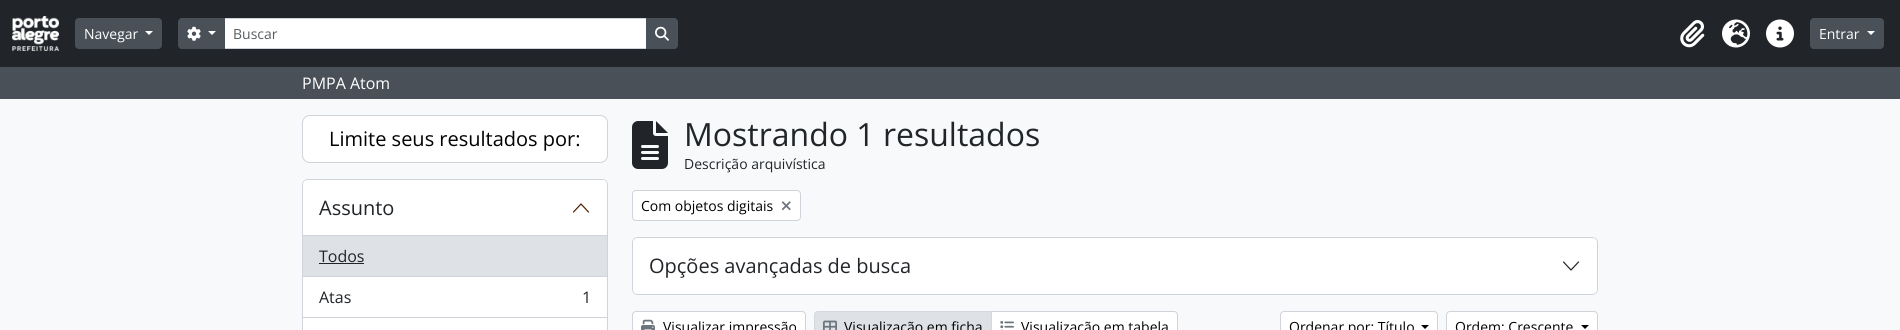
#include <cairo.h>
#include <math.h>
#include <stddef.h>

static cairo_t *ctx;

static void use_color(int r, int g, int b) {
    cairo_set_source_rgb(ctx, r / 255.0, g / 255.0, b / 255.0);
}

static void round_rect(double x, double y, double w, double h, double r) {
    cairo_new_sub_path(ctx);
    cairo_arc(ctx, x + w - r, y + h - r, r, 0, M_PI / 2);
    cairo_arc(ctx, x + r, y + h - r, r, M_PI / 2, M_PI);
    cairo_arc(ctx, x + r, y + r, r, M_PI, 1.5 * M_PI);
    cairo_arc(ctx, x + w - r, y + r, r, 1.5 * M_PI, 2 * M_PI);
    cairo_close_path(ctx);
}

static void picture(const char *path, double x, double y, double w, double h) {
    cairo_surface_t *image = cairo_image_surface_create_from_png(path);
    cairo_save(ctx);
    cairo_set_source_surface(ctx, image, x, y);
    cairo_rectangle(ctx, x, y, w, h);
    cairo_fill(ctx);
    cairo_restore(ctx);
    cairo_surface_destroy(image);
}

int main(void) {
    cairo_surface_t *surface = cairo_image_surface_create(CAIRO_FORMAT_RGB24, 1900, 330);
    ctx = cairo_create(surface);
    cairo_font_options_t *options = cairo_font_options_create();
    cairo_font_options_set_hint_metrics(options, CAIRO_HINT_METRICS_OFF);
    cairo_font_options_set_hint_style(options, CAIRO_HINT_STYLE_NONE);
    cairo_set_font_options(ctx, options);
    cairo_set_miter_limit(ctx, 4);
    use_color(248, 249, 250);
    cairo_paint(ctx);
    use_color(33, 37, 41);
    cairo_rectangle(ctx, 0, 0, 1900, 67);
    cairo_fill(ctx);
    picture("img1.png", 12, 16, 47, 35);
    use_color(73, 80, 87);
    round_rect(75.5, 18.5, 86, 30, 3.5);
    cairo_fill_preserve(ctx);
    cairo_set_line_width(ctx, 1);
    cairo_stroke(ctx);
    cairo_select_font_face(ctx, "Open Sans", CAIRO_FONT_SLANT_NORMAL, CAIRO_FONT_WEIGHT_NORMAL);
    cairo_set_font_size(ctx, 14);
    use_color(255, 255, 255);
    cairo_move_to(ctx, 84, 39);
    cairo_show_text(ctx, "Navegar");
    cairo_new_path(ctx);
    cairo_move_to(ctx, 145, 31);
    cairo_line_to(ctx, 153, 31);
    cairo_line_to(ctx, 149, 35);
    cairo_close_path(ctx);
    cairo_fill(ctx);
    cairo_rectangle(ctx, 224.5, 18.5, 422, 30);
    cairo_fill_preserve(ctx);
    use_color(206, 212, 218);
    cairo_stroke(ctx);
    use_color(73, 80, 87);
    cairo_new_path(ctx);
    cairo_move_to(ctx, 182, 18.5);
    cairo_line_to(ctx, 224.5, 18.5);
    cairo_line_to(ctx, 224.5, 48.5);
    cairo_line_to(ctx, 182, 48.5);
    cairo_curve_to(ctx, 180, 48.5, 178.5, 47, 178.5, 45);
    cairo_line_to(ctx, 178.5, 22);
    cairo_curve_to(ctx, 178.5, 20, 180, 18.5, 182, 18.5);
    cairo_close_path(ctx);
    cairo_fill_preserve(ctx);
    cairo_stroke(ctx);
    picture("img2.png", 187, 26, 14, 15);
    use_color(255, 255, 255);
    cairo_new_path(ctx);
    cairo_move_to(ctx, 208, 31);
    cairo_line_to(ctx, 216, 31);
    cairo_line_to(ctx, 212, 35);
    cairo_close_path(ctx);
    cairo_fill(ctx);
    use_color(89, 92, 95);
    cairo_move_to(ctx, 233, 39);
    cairo_show_text(ctx, "Buscar");
    use_color(73, 80, 87);
    cairo_new_path(ctx);
    cairo_move_to(ctx, 646.5, 18.5);
    cairo_line_to(ctx, 674, 18.5);
    cairo_curve_to(ctx, 676, 18.5, 677.5, 20, 677.5, 22);
    cairo_line_to(ctx, 677.5, 45);
    cairo_curve_to(ctx, 677.5, 47, 676, 48.5, 674, 48.5);
    cairo_line_to(ctx, 646.5, 48.5);
    cairo_close_path(ctx);
    cairo_fill_preserve(ctx);
    cairo_stroke(ctx);
    picture("img3.png", 655, 26, 14, 15);
    picture("img4.png", 1680, 20, 25, 28);
    picture("img5.png", 1722, 19, 28, 29);
    picture("img6.png", 1766, 19, 28, 29);
    round_rect(1810.5, 18.5, 73, 30, 3.5);
    cairo_fill_preserve(ctx);
    cairo_stroke(ctx);
    use_color(255, 255, 255);
    cairo_move_to(ctx, 1819, 39);
    cairo_show_text(ctx, "Entrar");
    cairo_new_path(ctx);
    cairo_move_to(ctx, 1867, 31);
    cairo_line_to(ctx, 1875, 31);
    cairo_line_to(ctx, 1871, 35);
    cairo_close_path(ctx);
    cairo_fill(ctx);
    use_color(73, 80, 87);
    cairo_rectangle(ctx, 0, 67, 1900, 32);
    cairo_fill(ctx);
    cairo_set_font_size(ctx, 16);
    use_color(255, 255, 255);
    cairo_move_to(ctx, 302, 89);
    cairo_show_text(ctx, "PMPA Atom");
    round_rect(302.5, 115.5, 305, 47, 7.5);
    cairo_fill_preserve(ctx);
    use_color(206, 212, 218);
    cairo_stroke(ctx);
    cairo_set_font_size(ctx, 20);
    use_color(0, 0, 0);
    cairo_move_to(ctx, 329, 146);
    cairo_show_text(ctx, "Limite seus resultados por:");
    use_color(255, 255, 255);
    round_rect(302.5, 179.5, 305, 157, 5.5);
    cairo_fill_preserve(ctx);
    use_color(206, 212, 218);
    cairo_stroke(ctx);
    use_color(255, 255, 255);
    cairo_new_path(ctx);
    cairo_move_to(ctx, 308, 180);
    cairo_line_to(ctx, 602, 180);
    cairo_curve_to(ctx, 605, 180, 607, 182, 607, 185);
    cairo_line_to(ctx, 607, 236);
    cairo_line_to(ctx, 303, 236);
    cairo_line_to(ctx, 303, 185);
    cairo_curve_to(ctx, 303, 182, 305, 180, 308, 180);
    cairo_close_path(ctx);
    cairo_fill(ctx);
    use_color(206, 212, 218);
    cairo_rectangle(ctx, 303, 235, 304, 1);
    cairo_fill(ctx);
    use_color(33, 37, 41);
    cairo_move_to(ctx, 319, 215);
    cairo_show_text(ctx, "Assunto");
    cairo_new_path(ctx);
    cairo_move_to(ctx, 588.5, 212);
    cairo_line_to(ctx, 581, 204);
    cairo_line_to(ctx, 573.5, 212);
    use_color(78, 31, 0);
    cairo_set_line_width(ctx, 1.2);
    cairo_set_line_cap(ctx, CAIRO_LINE_CAP_ROUND);
    cairo_set_line_join(ctx, CAIRO_LINE_JOIN_ROUND);
    cairo_stroke(ctx);
    use_color(222, 226, 230);
    cairo_rectangle(ctx, 303, 236, 304, 40);
    cairo_fill(ctx);
    use_color(206, 212, 218);
    cairo_rectangle(ctx, 303, 276, 304, 1);
    cairo_fill(ctx);
    cairo_set_font_size(ctx, 16);
    use_color(33, 37, 41);
    cairo_move_to(ctx, 319, 262);
    cairo_show_text(ctx, "Todos");
    cairo_rectangle(ctx, 319, 263, 45, 1);
    cairo_fill(ctx);
    use_color(206, 212, 218);
    cairo_rectangle(ctx, 303, 317, 304, 1);
    cairo_fill(ctx);
    use_color(33, 37, 41);
    cairo_move_to(ctx, 319, 303);
    cairo_show_text(ctx, "Atas");
    cairo_move_to(ctx, 582, 303);
    cairo_show_text(ctx, "1");
    picture("img7.png", 632, 121, 36, 48);
    cairo_set_font_size(ctx, 32);
    cairo_move_to(ctx, 684, 146);
    cairo_show_text(ctx, "Mostrando 1 resultados");
    cairo_set_font_size(ctx, 14);
    cairo_move_to(ctx, 684, 169);
    cairo_show_text(ctx, "Descrição arquivística");
    use_color(255, 255, 255);
    round_rect(632.5, 190.5, 168, 30, 3.5);
    cairo_fill_preserve(ctx);
    use_color(206, 212, 218);
    cairo_set_line_width(ctx, 1);
    cairo_set_line_cap(ctx, CAIRO_LINE_CAP_BUTT);
    cairo_set_line_join(ctx, CAIRO_LINE_JOIN_MITER);
    cairo_stroke(ctx);
    use_color(0, 0, 0);
    cairo_move_to(ctx, 641, 211);
    cairo_show_text(ctx, "Com objetos digitais");
    picture("img8.png", 781, 201, 10, 10);
    round_rect(632.5, 237.5, 965, 57, 5.5);
    use_color(206, 212, 218);
    cairo_stroke(ctx);
    use_color(255, 255, 255);
    round_rect(633, 238, 964, 56, 5);
    cairo_fill(ctx);
    cairo_set_font_size(ctx, 20);
    use_color(33, 37, 41);
    cairo_move_to(ctx, 649, 273);
    cairo_show_text(ctx, "Opções avançadas de busca");
    cairo_new_path(ctx);
    cairo_move_to(ctx, 1563.5, 262);
    cairo_line_to(ctx, 1571, 270);
    cairo_line_to(ctx, 1578.5, 262);
    cairo_set_line_width(ctx, 1.2);
    cairo_set_line_cap(ctx, CAIRO_LINE_CAP_ROUND);
    cairo_set_line_join(ctx, CAIRO_LINE_JOIN_ROUND);
    cairo_stroke(ctx);
    use_color(255, 255, 255);
    round_rect(632.5, 311.5, 173, 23, 3.5);
    cairo_fill_preserve(ctx);
    use_color(206, 212, 218);
    cairo_set_line_width(ctx, 1);
    cairo_set_line_cap(ctx, CAIRO_LINE_CAP_BUTT);
    cairo_set_line_join(ctx, CAIRO_LINE_JOIN_MITER);
    cairo_stroke(ctx);
    picture("img9.png", 641, 319, 14, 11);
    cairo_set_font_size(ctx, 14);
    use_color(0, 0, 0);
    cairo_move_to(ctx, 663, 332);
    cairo_show_text(ctx, "Visualizar impressão");
    use_color(255, 255, 255);
    cairo_new_path(ctx);
    cairo_move_to(ctx, 991.5, 311.5);
    cairo_line_to(ctx, 1174, 311.5);
    cairo_curve_to(ctx, 1176, 311.5, 1177.5, 313, 1177.5, 315);
    cairo_line_to(ctx, 1177.5, 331);
    cairo_curve_to(ctx, 1177.5, 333, 1176, 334.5, 1174, 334.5);
    cairo_line_to(ctx, 991.5, 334.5);
    cairo_close_path(ctx);
    cairo_fill_preserve(ctx);
    use_color(206, 212, 218);
    cairo_stroke(ctx);
    use_color(222, 226, 230);
    cairo_new_path(ctx);
    cairo_move_to(ctx, 818, 311.5);
    cairo_line_to(ctx, 991.5, 311.5);
    cairo_line_to(ctx, 991.5, 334.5);
    cairo_line_to(ctx, 818, 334.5);
    cairo_curve_to(ctx, 816, 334.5, 814.5, 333, 814.5, 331);
    cairo_line_to(ctx, 814.5, 315);
    cairo_curve_to(ctx, 814.5, 313, 816, 311.5, 818, 311.5);
    cairo_close_path(ctx);
    cairo_fill_preserve(ctx);
    use_color(211, 216, 222);
    cairo_stroke(ctx);
    picture("img10.png", 823, 320, 14, 10);
    use_color(0, 0, 0);
    cairo_move_to(ctx, 844, 332);
    cairo_show_text(ctx, "Visualização em ficha");
    picture("img11.png", 1000, 321, 14, 9);
    cairo_move_to(ctx, 1021, 332);
    cairo_show_text(ctx, "Visualização em tabela");
    use_color(255, 255, 255);
    round_rect(1280.5, 311.5, 157, 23, 3.5);
    cairo_fill_preserve(ctx);
    use_color(206, 212, 218);
    cairo_stroke(ctx);
    use_color(0, 0, 0);
    cairo_move_to(ctx, 1289, 332);
    cairo_show_text(ctx, "Ordenar por: Título");
    cairo_new_path(ctx);
    cairo_move_to(ctx, 1421, 325);
    cairo_line_to(ctx, 1429, 325);
    cairo_line_to(ctx, 1425, 329);
    cairo_close_path(ctx);
    cairo_fill(ctx);
    use_color(255, 255, 255);
    round_rect(1446.5, 311.5, 151, 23, 3.5);
    cairo_fill_preserve(ctx);
    use_color(206, 212, 218);
    cairo_stroke(ctx);
    use_color(0, 0, 0);
    cairo_move_to(ctx, 1455, 332);
    cairo_show_text(ctx, "Ordem: Crescente");
    cairo_new_path(ctx);
    cairo_move_to(ctx, 1581, 325);
    cairo_line_to(ctx, 1589, 325);
    cairo_line_to(ctx, 1585, 329);
    cairo_close_path(ctx);
    cairo_fill(ctx);
    cairo_surface_write_to_png(surface, "result.png");
    cairo_font_options_destroy(options);
    cairo_destroy(ctx);
    cairo_surface_destroy(surface);
    return 0;
}
